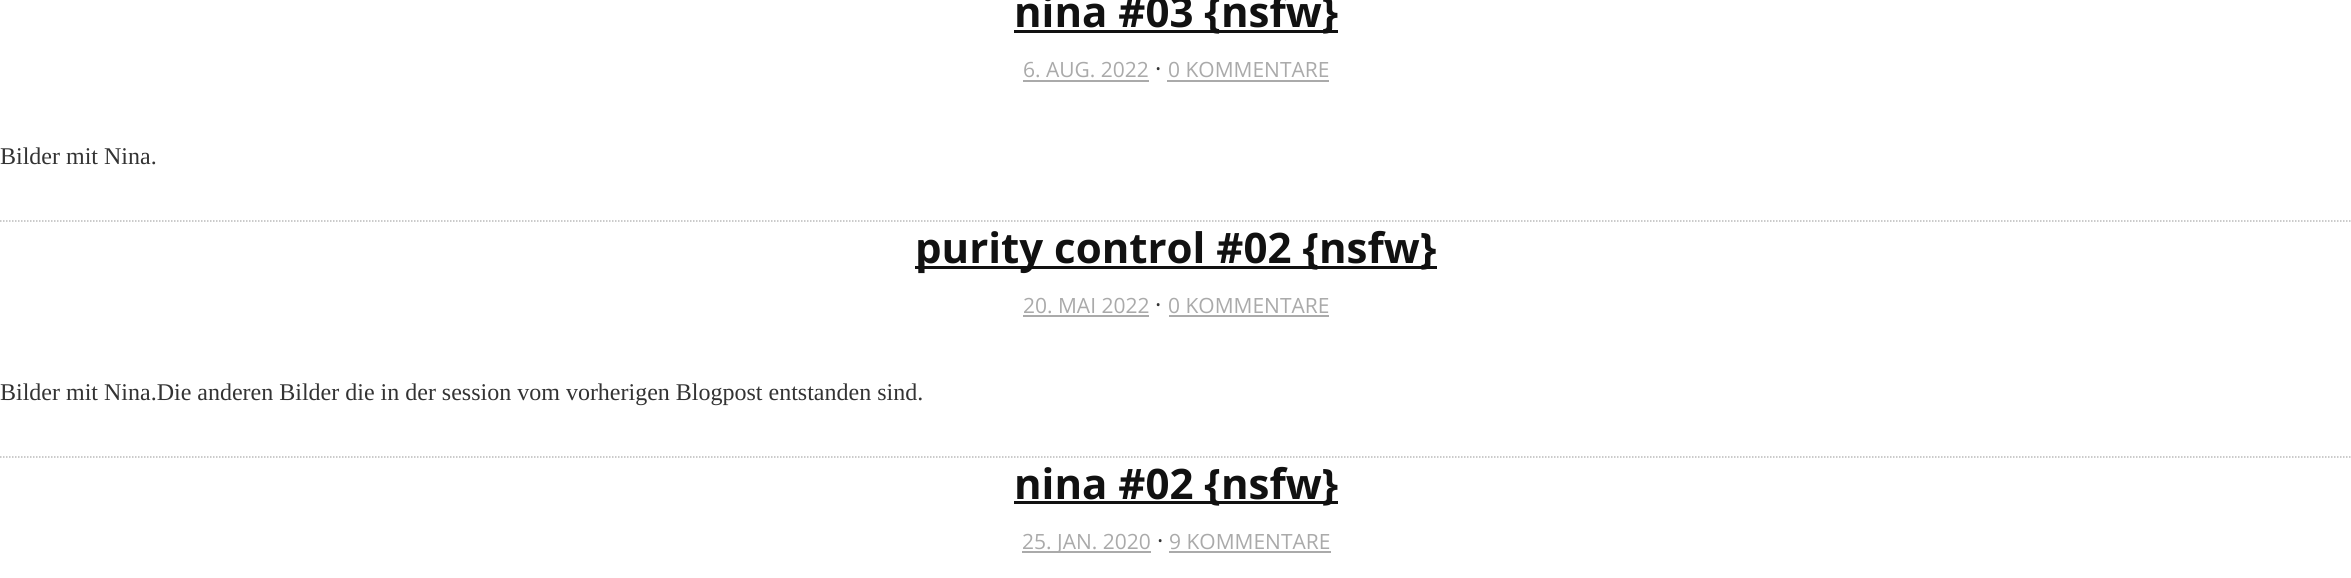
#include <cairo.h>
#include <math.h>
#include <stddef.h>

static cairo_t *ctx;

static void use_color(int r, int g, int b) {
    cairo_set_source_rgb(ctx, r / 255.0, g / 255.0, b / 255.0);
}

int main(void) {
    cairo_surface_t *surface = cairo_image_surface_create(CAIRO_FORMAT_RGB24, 2351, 578);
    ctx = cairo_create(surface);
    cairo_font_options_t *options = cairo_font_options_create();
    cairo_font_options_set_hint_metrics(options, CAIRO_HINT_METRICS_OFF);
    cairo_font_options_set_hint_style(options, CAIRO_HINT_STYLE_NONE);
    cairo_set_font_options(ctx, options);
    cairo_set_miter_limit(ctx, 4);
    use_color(255, 255, 255);
    cairo_paint(ctx);
    use_color(17, 17, 17);
    cairo_rectangle(ctx, 1014, 30, 324, 3);
    cairo_fill(ctx);
    cairo_select_font_face(ctx, "Open Sans", CAIRO_FONT_SLANT_NORMAL, CAIRO_FONT_WEIGHT_BOLD);
    cairo_set_font_size(ctx, 42);
    cairo_move_to(ctx, 1014, 27);
    cairo_show_text(ctx, "nina #03 {nsfw}");
    cairo_select_font_face(ctx, "Open Sans", CAIRO_FONT_SLANT_NORMAL, CAIRO_FONT_WEIGHT_NORMAL);
    cairo_set_font_size(ctx, 21);
    use_color(170, 170, 170);
    cairo_move_to(ctx, 1023, 77);
    cairo_show_text(ctx, "6. AUG. 2022");
    cairo_rectangle(ctx, 1023, 80, 126, 2);
    cairo_fill(ctx);
    cairo_set_font_size(ctx, 24);
    use_color(51, 51, 51);
    cairo_move_to(ctx, 1155, 77);
    cairo_show_text(ctx, "·");
    cairo_set_font_size(ctx, 21);
    use_color(170, 170, 170);
    cairo_move_to(ctx, 1168, 77);
    cairo_show_text(ctx, "0 KOMMENTARE");
    cairo_rectangle(ctx, 1167, 80, 162, 2);
    cairo_fill(ctx);
    cairo_select_font_face(ctx, "Liberation Serif", CAIRO_FONT_SLANT_NORMAL, CAIRO_FONT_WEIGHT_NORMAL);
    cairo_set_font_size(ctx, 24);
    use_color(51, 51, 51);
    cairo_move_to(ctx, 0, 164);
    cairo_show_text(ctx, "Bilder mit Nina.");
    cairo_new_path(ctx);
    cairo_move_to(ctx, 0, 221);
    cairo_line_to(ctx, 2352, 221);
    use_color(186, 186, 186);
    cairo_set_line_width(ctx, 1.5);
    cairo_set_dash(ctx, (double[]){1.5, 1.5}, 2, 0);
    cairo_stroke(ctx);
    use_color(17, 17, 17);
    cairo_rectangle(ctx, 915, 266, 522, 3);
    cairo_fill(ctx);
    cairo_select_font_face(ctx, "Open Sans", CAIRO_FONT_SLANT_NORMAL, CAIRO_FONT_WEIGHT_BOLD);
    cairo_set_font_size(ctx, 42);
    cairo_move_to(ctx, 915, 263);
    cairo_show_text(ctx, "purity control #02 {nsfw}");
    cairo_select_font_face(ctx, "Open Sans", CAIRO_FONT_SLANT_NORMAL, CAIRO_FONT_WEIGHT_NORMAL);
    cairo_set_font_size(ctx, 21);
    use_color(170, 170, 170);
    cairo_move_to(ctx, 1023, 313);
    cairo_show_text(ctx, "20. MAI 2022");
    cairo_rectangle(ctx, 1023, 315, 126, 2);
    cairo_fill(ctx);
    cairo_set_font_size(ctx, 24);
    use_color(51, 51, 51);
    cairo_move_to(ctx, 1155, 313);
    cairo_show_text(ctx, "·");
    cairo_set_font_size(ctx, 21);
    use_color(170, 170, 170);
    cairo_move_to(ctx, 1168, 313);
    cairo_show_text(ctx, "0 KOMMENTARE");
    cairo_rectangle(ctx, 1169, 315, 160, 2);
    cairo_fill(ctx);
    cairo_select_font_face(ctx, "Liberation Serif", CAIRO_FONT_SLANT_NORMAL, CAIRO_FONT_WEIGHT_NORMAL);
    cairo_set_font_size(ctx, 24);
    use_color(51, 51, 51);
    cairo_move_to(ctx, 0, 400);
    cairo_show_text(ctx, "Bilder mit Nina.Die anderen Bilder die in der session vom vorherigen Blogpost entstanden sind.");
    cairo_new_path(ctx);
    cairo_move_to(ctx, 0, 457);
    cairo_line_to(ctx, 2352, 457);
    use_color(186, 186, 186);
    cairo_stroke(ctx);
    use_color(17, 17, 17);
    cairo_rectangle(ctx, 1014, 501, 324, 3);
    cairo_fill(ctx);
    cairo_select_font_face(ctx, "Open Sans", CAIRO_FONT_SLANT_NORMAL, CAIRO_FONT_WEIGHT_BOLD);
    cairo_set_font_size(ctx, 42);
    cairo_move_to(ctx, 1014, 499);
    cairo_show_text(ctx, "nina #02 {nsfw}");
    use_color(170, 170, 170);
    cairo_rectangle(ctx, 1022, 551, 129, 2);
    cairo_fill(ctx);
    cairo_select_font_face(ctx, "Open Sans", CAIRO_FONT_SLANT_NORMAL, CAIRO_FONT_WEIGHT_NORMAL);
    cairo_set_font_size(ctx, 21);
    cairo_move_to(ctx, 1022, 549);
    cairo_show_text(ctx, "25. JAN. 2020");
    cairo_set_font_size(ctx, 24);
    use_color(51, 51, 51);
    cairo_move_to(ctx, 1157, 549);
    cairo_show_text(ctx, "·");
    cairo_set_font_size(ctx, 21);
    use_color(170, 170, 170);
    cairo_move_to(ctx, 1169, 549);
    cairo_show_text(ctx, "9 KOMMENTARE");
    cairo_rectangle(ctx, 1169, 551, 162, 2);
    cairo_fill(ctx);
    cairo_surface_write_to_png(surface, "result.png");
    cairo_font_options_destroy(options);
    cairo_destroy(ctx);
    cairo_surface_destroy(surface);
    return 0;
}
